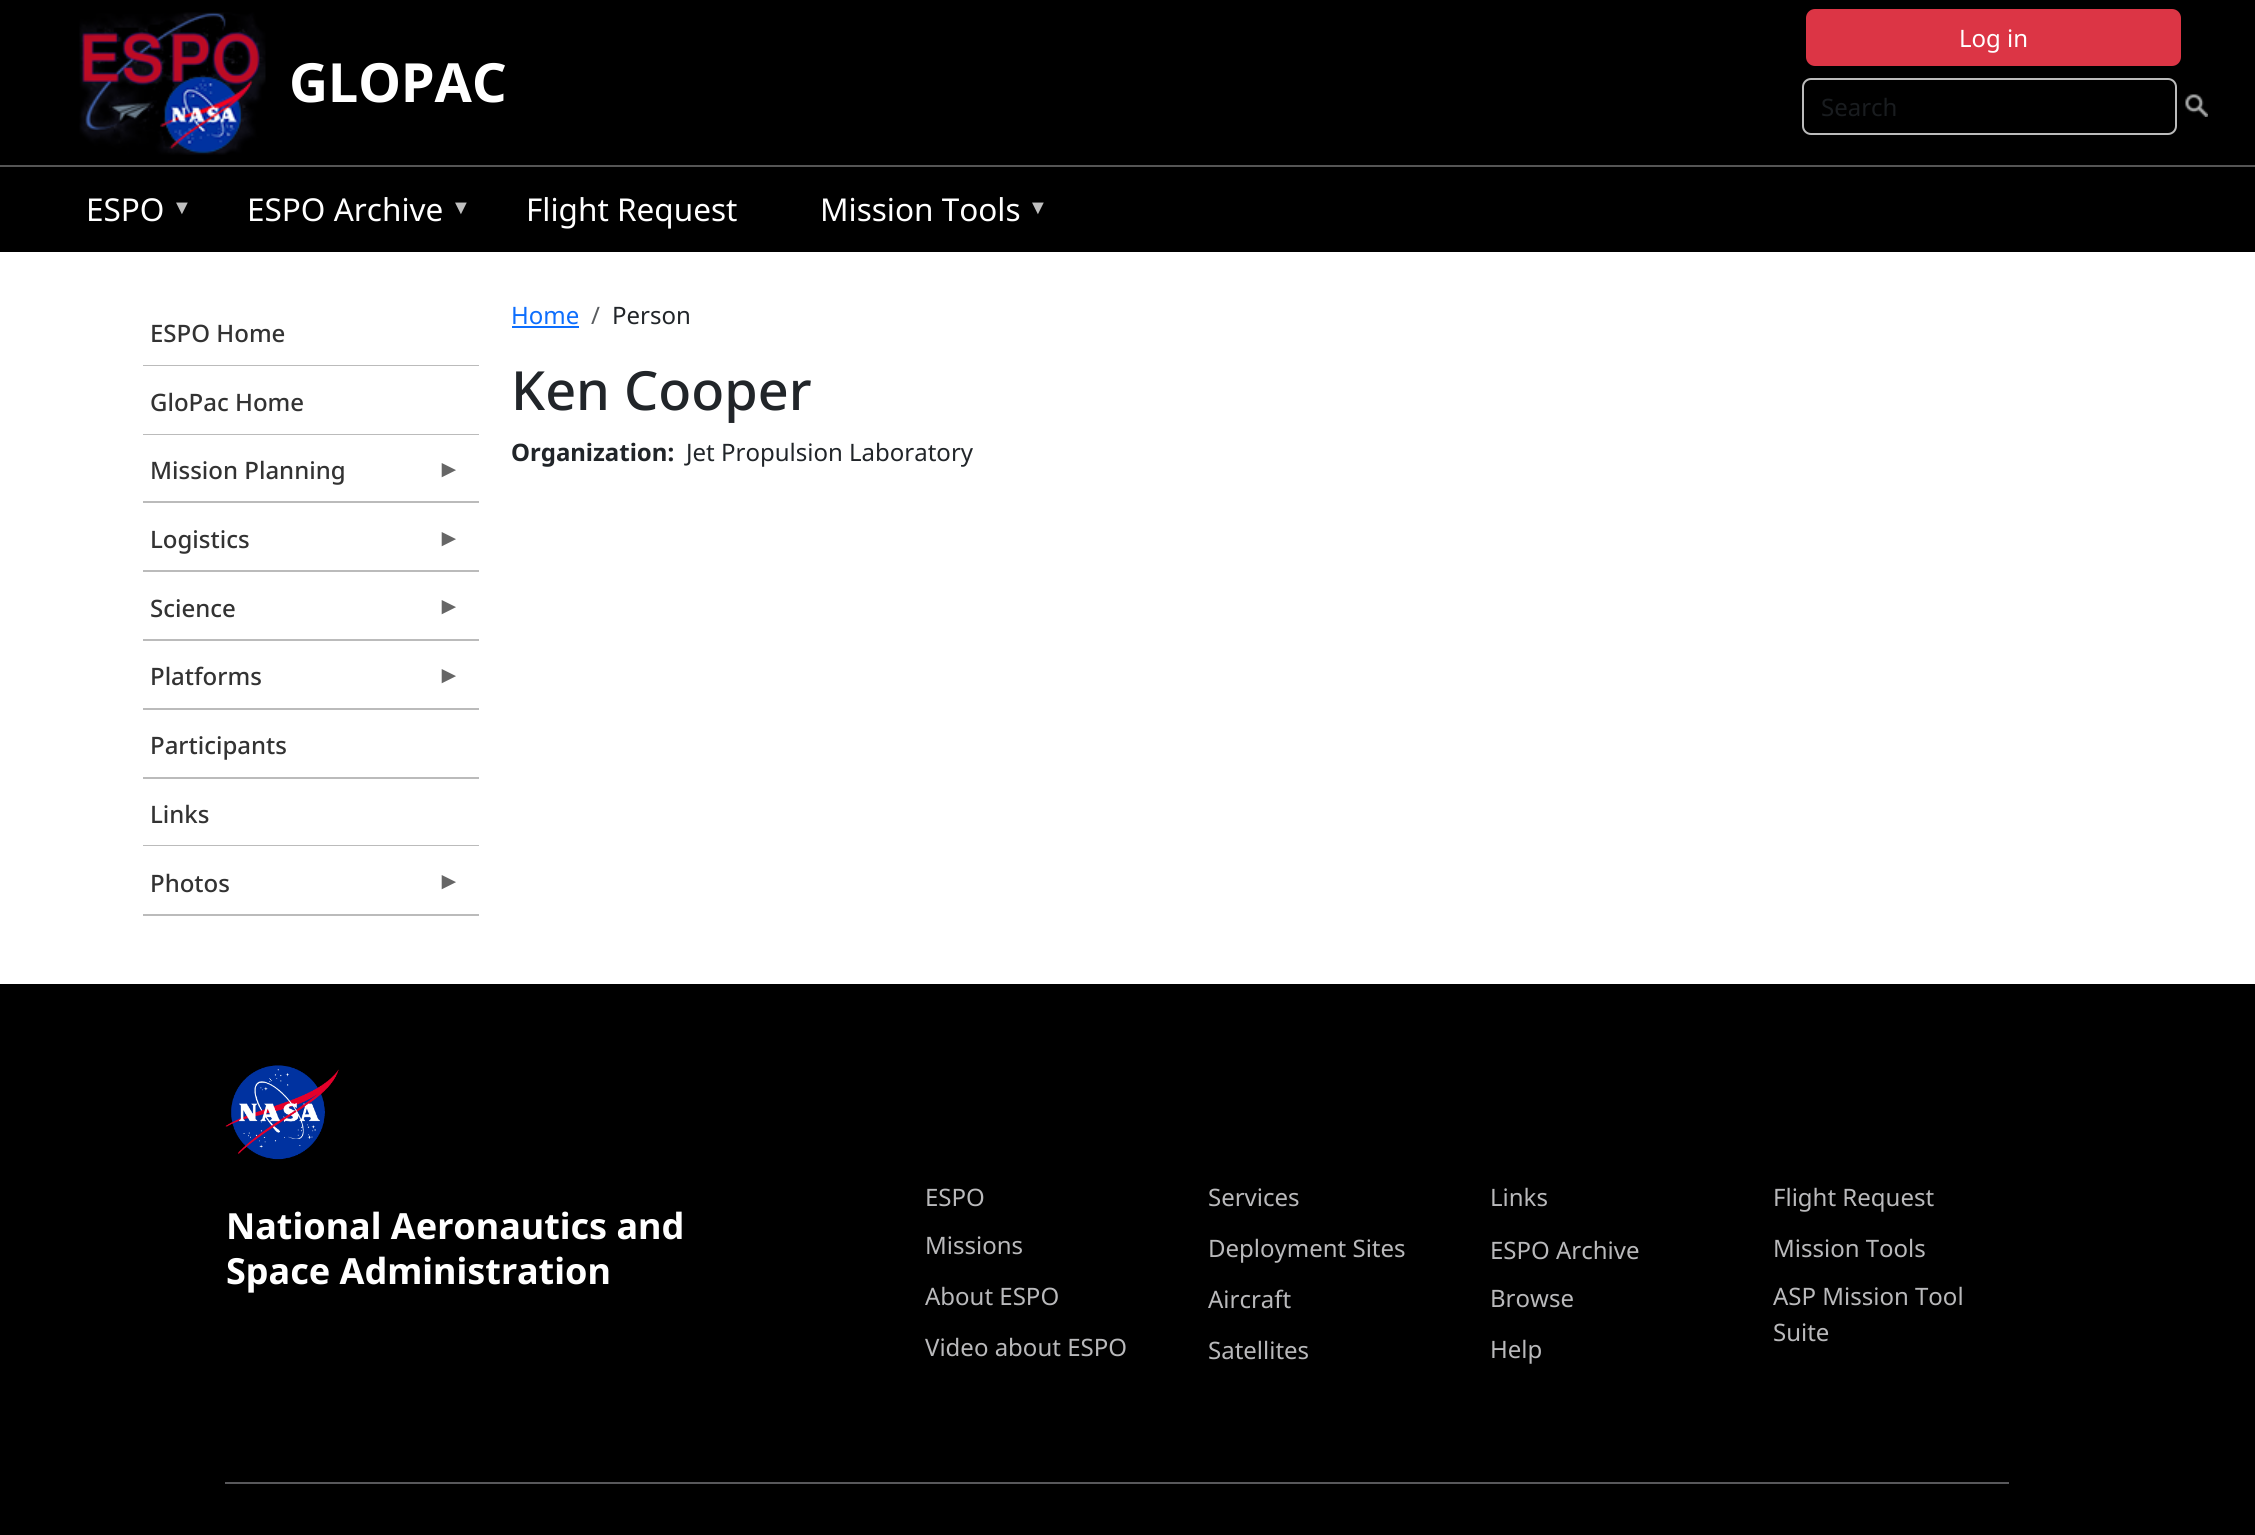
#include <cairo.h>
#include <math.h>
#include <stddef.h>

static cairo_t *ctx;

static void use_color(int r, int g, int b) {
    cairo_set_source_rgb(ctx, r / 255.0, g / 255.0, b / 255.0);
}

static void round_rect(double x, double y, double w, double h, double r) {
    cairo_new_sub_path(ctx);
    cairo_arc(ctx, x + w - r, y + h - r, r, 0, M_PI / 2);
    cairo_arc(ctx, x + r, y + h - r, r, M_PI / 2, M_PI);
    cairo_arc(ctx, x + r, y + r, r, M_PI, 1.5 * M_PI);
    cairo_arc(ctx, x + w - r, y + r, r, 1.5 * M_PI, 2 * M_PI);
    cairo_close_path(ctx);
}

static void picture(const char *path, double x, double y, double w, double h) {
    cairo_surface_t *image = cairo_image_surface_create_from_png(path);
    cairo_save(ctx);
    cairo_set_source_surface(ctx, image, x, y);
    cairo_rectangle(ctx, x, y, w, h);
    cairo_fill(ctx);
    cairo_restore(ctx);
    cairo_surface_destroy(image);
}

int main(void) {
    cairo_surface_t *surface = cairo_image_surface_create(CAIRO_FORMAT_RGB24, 2255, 1535);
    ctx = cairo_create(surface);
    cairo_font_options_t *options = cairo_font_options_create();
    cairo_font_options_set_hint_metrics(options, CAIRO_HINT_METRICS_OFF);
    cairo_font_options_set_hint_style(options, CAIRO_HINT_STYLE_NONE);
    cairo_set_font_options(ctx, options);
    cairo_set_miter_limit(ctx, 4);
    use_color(255, 255, 255);
    cairo_paint(ctx);
    use_color(0, 0, 0);
    cairo_rectangle(ctx, 0, 0, 2255, 165);
    cairo_fill(ctx);
    use_color(220, 53, 69);
    round_rect(1807, 10, 373, 55, 8);
    cairo_fill_preserve(ctx);
    cairo_stroke(ctx);
    cairo_select_font_face(ctx, "Noto Sans", CAIRO_FONT_SLANT_NORMAL, CAIRO_FONT_WEIGHT_NORMAL);
    cairo_set_font_size(ctx, 24);
    use_color(255, 255, 255);
    cairo_move_to(ctx, 1959, 47);
    cairo_show_text(ctx, "Log in");
    picture("img1.png", 79, 12, 187, 143);
    cairo_select_font_face(ctx, "Noto Sans", CAIRO_FONT_SLANT_NORMAL, CAIRO_FONT_WEIGHT_BOLD);
    cairo_set_font_size(ctx, 54);
    cairo_move_to(ctx, 289, 102);
    cairo_show_text(ctx, "GLOPAC");
    round_rect(1803, 79, 373, 55, 8);
    use_color(187, 187, 187);
    cairo_stroke(ctx);
    cairo_select_font_face(ctx, "Noto Sans", CAIRO_FONT_SLANT_NORMAL, CAIRO_FONT_WEIGHT_NORMAL);
    cairo_set_font_size(ctx, 24);
    use_color(25, 28, 31);
    cairo_move_to(ctx, 1821, 116);
    cairo_show_text(ctx, "Search");
    picture("img2.png", 2185, 94, 23, 23);
    use_color(0, 0, 0);
    cairo_rectangle(ctx, 0, 167, 2255, 85);
    cairo_fill(ctx);
    use_color(85, 85, 85);
    cairo_rectangle(ctx, 0, 165, 2255, 2);
    cairo_fill(ctx);
    cairo_set_font_size(ctx, 31.5);
    use_color(255, 255, 255);
    cairo_move_to(ctx, 86, 221);
    cairo_show_text(ctx, "ESPO");
    cairo_select_font_face(ctx, "Liberation Sans", CAIRO_FONT_SLANT_NORMAL, CAIRO_FONT_WEIGHT_NORMAL);
    cairo_set_font_size(ctx, 20);
    use_color(191, 191, 191);
    cairo_move_to(ctx, 172, 214);
    cairo_show_text(ctx, "▼");
    cairo_select_font_face(ctx, "Noto Sans", CAIRO_FONT_SLANT_NORMAL, CAIRO_FONT_WEIGHT_NORMAL);
    cairo_set_font_size(ctx, 31.5);
    use_color(255, 255, 255);
    cairo_move_to(ctx, 247, 221);
    cairo_show_text(ctx, "ESPO Archive");
    cairo_select_font_face(ctx, "Liberation Sans", CAIRO_FONT_SLANT_NORMAL, CAIRO_FONT_WEIGHT_NORMAL);
    cairo_set_font_size(ctx, 20);
    use_color(191, 191, 191);
    cairo_move_to(ctx, 451, 214);
    cairo_show_text(ctx, "▼");
    cairo_select_font_face(ctx, "Noto Sans", CAIRO_FONT_SLANT_NORMAL, CAIRO_FONT_WEIGHT_NORMAL);
    cairo_set_font_size(ctx, 31.5);
    use_color(255, 255, 255);
    cairo_move_to(ctx, 526, 221);
    cairo_show_text(ctx, "Flight Request");
    cairo_move_to(ctx, 820, 221);
    cairo_show_text(ctx, "Mission Tools");
    cairo_select_font_face(ctx, "Liberation Sans", CAIRO_FONT_SLANT_NORMAL, CAIRO_FONT_WEIGHT_NORMAL);
    cairo_set_font_size(ctx, 20);
    use_color(191, 191, 191);
    cairo_move_to(ctx, 1028, 214);
    cairo_show_text(ctx, "▼");
    use_color(187, 187, 187);
    cairo_rectangle(ctx, 143, 365, 336, 1);
    cairo_fill(ctx);
    cairo_select_font_face(ctx, "Noto Sans Medium", CAIRO_FONT_SLANT_NORMAL, CAIRO_FONT_WEIGHT_NORMAL);
    cairo_set_font_size(ctx, 24);
    use_color(51, 51, 51);
    cairo_move_to(ctx, 150, 342);
    cairo_show_text(ctx, "ESPO Home");
    use_color(187, 187, 187);
    cairo_rectangle(ctx, 143, 434, 336, 1);
    cairo_fill(ctx);
    use_color(51, 51, 51);
    cairo_move_to(ctx, 150, 411);
    cairo_show_text(ctx, "GloPac Home");
    use_color(187, 187, 187);
    cairo_rectangle(ctx, 143, 501, 336, 2);
    cairo_fill(ctx);
    use_color(51, 51, 51);
    cairo_move_to(ctx, 150, 479);
    cairo_show_text(ctx, "Mission Planning");
    cairo_select_font_face(ctx, "Liberation Sans", CAIRO_FONT_SLANT_NORMAL, CAIRO_FONT_WEIGHT_NORMAL);
    use_color(102, 102, 102);
    cairo_move_to(ctx, 437, 477);
    cairo_show_text(ctx, "►");
    use_color(187, 187, 187);
    cairo_rectangle(ctx, 143, 570, 336, 2);
    cairo_fill(ctx);
    cairo_select_font_face(ctx, "Noto Sans Medium", CAIRO_FONT_SLANT_NORMAL, CAIRO_FONT_WEIGHT_NORMAL);
    use_color(51, 51, 51);
    cairo_move_to(ctx, 150, 548);
    cairo_show_text(ctx, "Logistics");
    cairo_select_font_face(ctx, "Liberation Sans", CAIRO_FONT_SLANT_NORMAL, CAIRO_FONT_WEIGHT_NORMAL);
    use_color(102, 102, 102);
    cairo_move_to(ctx, 437, 546);
    cairo_show_text(ctx, "►");
    use_color(187, 187, 187);
    cairo_rectangle(ctx, 143, 639, 336, 2);
    cairo_fill(ctx);
    cairo_select_font_face(ctx, "Noto Sans Medium", CAIRO_FONT_SLANT_NORMAL, CAIRO_FONT_WEIGHT_NORMAL);
    use_color(51, 51, 51);
    cairo_move_to(ctx, 150, 617);
    cairo_show_text(ctx, "Science");
    cairo_select_font_face(ctx, "Liberation Sans", CAIRO_FONT_SLANT_NORMAL, CAIRO_FONT_WEIGHT_NORMAL);
    use_color(102, 102, 102);
    cairo_move_to(ctx, 437, 614);
    cairo_show_text(ctx, "►");
    use_color(187, 187, 187);
    cairo_rectangle(ctx, 143, 708, 336, 2);
    cairo_fill(ctx);
    cairo_select_font_face(ctx, "Noto Sans Medium", CAIRO_FONT_SLANT_NORMAL, CAIRO_FONT_WEIGHT_NORMAL);
    use_color(51, 51, 51);
    cairo_move_to(ctx, 150, 685);
    cairo_show_text(ctx, "Platforms");
    cairo_select_font_face(ctx, "Liberation Sans", CAIRO_FONT_SLANT_NORMAL, CAIRO_FONT_WEIGHT_NORMAL);
    use_color(102, 102, 102);
    cairo_move_to(ctx, 437, 683);
    cairo_show_text(ctx, "►");
    use_color(187, 187, 187);
    cairo_rectangle(ctx, 143, 777, 336, 2);
    cairo_fill(ctx);
    cairo_select_font_face(ctx, "Noto Sans Medium", CAIRO_FONT_SLANT_NORMAL, CAIRO_FONT_WEIGHT_NORMAL);
    use_color(51, 51, 51);
    cairo_move_to(ctx, 150, 754);
    cairo_show_text(ctx, "Participants");
    use_color(187, 187, 187);
    cairo_rectangle(ctx, 143, 845, 336, 1);
    cairo_fill(ctx);
    use_color(51, 51, 51);
    cairo_move_to(ctx, 150, 823);
    cairo_show_text(ctx, "Links");
    use_color(187, 187, 187);
    cairo_rectangle(ctx, 143, 914, 336, 2);
    cairo_fill(ctx);
    use_color(51, 51, 51);
    cairo_move_to(ctx, 150, 892);
    cairo_show_text(ctx, "Photos");
    cairo_select_font_face(ctx, "Liberation Sans", CAIRO_FONT_SLANT_NORMAL, CAIRO_FONT_WEIGHT_NORMAL);
    use_color(102, 102, 102);
    cairo_move_to(ctx, 437, 889);
    cairo_show_text(ctx, "►");
    cairo_select_font_face(ctx, "Noto Sans", CAIRO_FONT_SLANT_NORMAL, CAIRO_FONT_WEIGHT_NORMAL);
    use_color(13, 110, 253);
    cairo_move_to(ctx, 511, 324);
    cairo_show_text(ctx, "Home");
    cairo_rectangle(ctx, 512, 326, 67, 2);
    cairo_fill(ctx);
    use_color(89, 92, 95);
    cairo_move_to(ctx, 591, 324);
    cairo_show_text(ctx, "/");
    use_color(33, 37, 41);
    cairo_move_to(ctx, 612, 324);
    cairo_show_text(ctx, "Person");
    cairo_select_font_face(ctx, "Noto Sans Medium", CAIRO_FONT_SLANT_NORMAL, CAIRO_FONT_WEIGHT_NORMAL);
    cairo_set_font_size(ctx, 54);
    cairo_move_to(ctx, 511, 410);
    cairo_show_text(ctx, "Ken Cooper");
    cairo_select_font_face(ctx, "Noto Sans", CAIRO_FONT_SLANT_NORMAL, CAIRO_FONT_WEIGHT_BOLD);
    cairo_set_font_size(ctx, 24);
    cairo_move_to(ctx, 511, 461);
    cairo_show_text(ctx, "Organization:");
    cairo_select_font_face(ctx, "Noto Sans", CAIRO_FONT_SLANT_NORMAL, CAIRO_FONT_WEIGHT_NORMAL);
    cairo_move_to(ctx, 686, 461);
    cairo_show_text(ctx, "Jet Propulsion Laboratory");
    use_color(0, 0, 0);
    cairo_rectangle(ctx, 0, 984, 2255, 551);
    cairo_fill(ctx);
    picture("img3.png", 225, 1065, 114, 95);
    cairo_select_font_face(ctx, "Noto Sans", CAIRO_FONT_SLANT_NORMAL, CAIRO_FONT_WEIGHT_BOLD);
    cairo_set_font_size(ctx, 36);
    use_color(255, 255, 255);
    cairo_move_to(ctx, 226, 1239);
    cairo_show_text(ctx, "National Aeronautics and");
    cairo_move_to(ctx, 226, 1284);
    cairo_show_text(ctx, "Space Administration");
    cairo_select_font_face(ctx, "Noto Sans", CAIRO_FONT_SLANT_NORMAL, CAIRO_FONT_WEIGHT_NORMAL);
    cairo_set_font_size(ctx, 24);
    use_color(185, 185, 187);
    cairo_move_to(ctx, 1208, 1206);
    cairo_show_text(ctx, "Services");
    cairo_move_to(ctx, 1490, 1206);
    cairo_show_text(ctx, "Links");
    cairo_move_to(ctx, 925, 1254);
    cairo_show_text(ctx, "Missions");
    cairo_move_to(ctx, 1208, 1257);
    cairo_show_text(ctx, "Deployment Sites");
    cairo_move_to(ctx, 925, 1305);
    cairo_show_text(ctx, "About ESPO");
    cairo_move_to(ctx, 1208, 1308);
    cairo_show_text(ctx, "Aircraft");
    cairo_move_to(ctx, 925, 1356);
    cairo_show_text(ctx, "Video about ESPO");
    cairo_move_to(ctx, 1208, 1359);
    cairo_show_text(ctx, "Satellites");
    cairo_move_to(ctx, 925, 1206);
    cairo_show_text(ctx, "ESPO");
    cairo_move_to(ctx, 1773, 1206);
    cairo_show_text(ctx, "Flight Request");
    cairo_move_to(ctx, 1490, 1259);
    cairo_show_text(ctx, "ESPO Archive");
    cairo_move_to(ctx, 1490, 1307);
    cairo_show_text(ctx, "Browse");
    cairo_move_to(ctx, 1490, 1358);
    cairo_show_text(ctx, "Help");
    cairo_move_to(ctx, 1773, 1257);
    cairo_show_text(ctx, "Mission Tools");
    cairo_move_to(ctx, 1773, 1305);
    cairo_show_text(ctx, "ASP Mission Tool");
    cairo_move_to(ctx, 1773, 1341);
    cairo_show_text(ctx, "Suite");
    use_color(88, 88, 91);
    cairo_rectangle(ctx, 225, 1482, 1784, 2);
    cairo_fill(ctx);
    cairo_surface_write_to_png(surface, "result.png");
    cairo_font_options_destroy(options);
    cairo_destroy(ctx);
    cairo_surface_destroy(surface);
    return 0;
}
